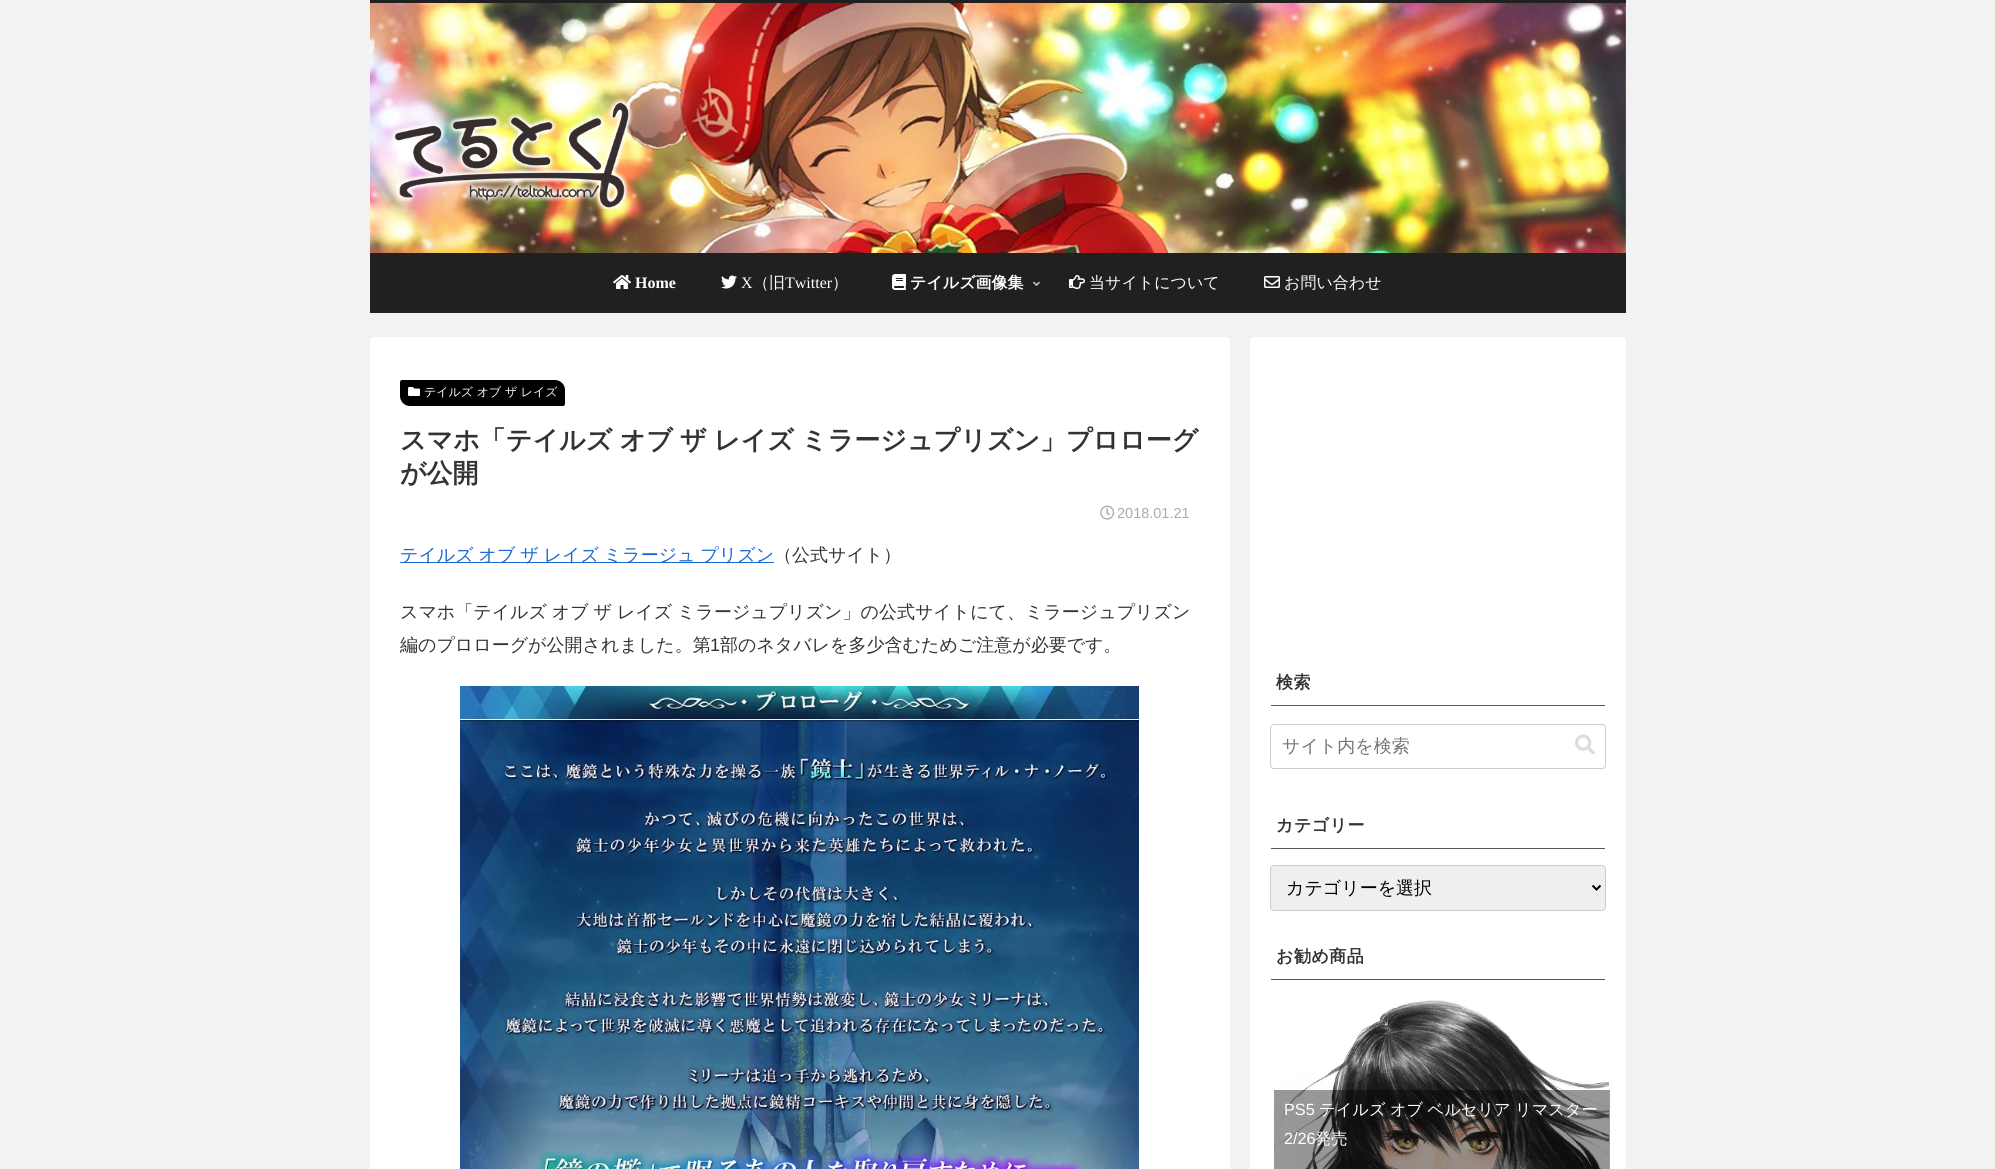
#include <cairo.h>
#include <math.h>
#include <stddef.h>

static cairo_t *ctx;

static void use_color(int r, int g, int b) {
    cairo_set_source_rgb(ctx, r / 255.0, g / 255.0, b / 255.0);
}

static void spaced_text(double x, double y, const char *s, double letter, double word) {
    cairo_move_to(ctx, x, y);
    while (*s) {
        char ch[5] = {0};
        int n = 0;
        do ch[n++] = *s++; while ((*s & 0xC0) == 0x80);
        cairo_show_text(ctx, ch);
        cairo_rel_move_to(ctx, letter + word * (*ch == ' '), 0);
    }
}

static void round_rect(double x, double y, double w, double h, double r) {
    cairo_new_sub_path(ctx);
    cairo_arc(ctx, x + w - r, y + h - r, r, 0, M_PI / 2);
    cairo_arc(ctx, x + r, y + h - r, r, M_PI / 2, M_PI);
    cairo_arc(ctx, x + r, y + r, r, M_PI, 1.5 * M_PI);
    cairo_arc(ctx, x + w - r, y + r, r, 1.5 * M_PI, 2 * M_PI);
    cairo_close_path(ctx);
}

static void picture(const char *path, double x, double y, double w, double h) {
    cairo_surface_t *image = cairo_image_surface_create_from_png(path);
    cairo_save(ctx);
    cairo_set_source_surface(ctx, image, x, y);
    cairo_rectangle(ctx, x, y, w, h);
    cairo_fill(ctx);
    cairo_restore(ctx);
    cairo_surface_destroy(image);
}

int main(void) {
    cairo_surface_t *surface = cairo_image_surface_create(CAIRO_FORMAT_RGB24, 1995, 1169);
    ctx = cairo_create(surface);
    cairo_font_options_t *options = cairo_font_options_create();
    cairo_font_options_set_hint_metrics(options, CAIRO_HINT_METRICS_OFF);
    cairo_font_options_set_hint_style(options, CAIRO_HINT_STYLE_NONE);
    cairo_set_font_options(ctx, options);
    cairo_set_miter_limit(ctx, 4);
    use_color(242, 242, 242);
    cairo_paint(ctx);
    use_color(32, 32, 32);
    cairo_rectangle(ctx, 370, 0, 1256, 3);
    cairo_fill(ctx);
    picture("img1.png", 370, 3, 1256, 250);
    picture("img2.png", 391, 98, 242, 111);
    cairo_rectangle(ctx, 370, 253, 1256, 60);
    cairo_fill(ctx);
    picture("img3.png", 613, 275, 18, 14);
    cairo_select_font_face(ctx, "Liberation Serif", CAIRO_FONT_SLANT_NORMAL, CAIRO_FONT_WEIGHT_BOLD);
    cairo_set_font_size(ctx, 16);
    use_color(255, 255, 255);
    cairo_move_to(ctx, 635, 288);
    cairo_show_text(ctx, "Home");
    picture("img4.png", 721, 275, 16, 14);
    cairo_select_font_face(ctx, "Liberation Serif", CAIRO_FONT_SLANT_NORMAL, CAIRO_FONT_WEIGHT_NORMAL);
    cairo_move_to(ctx, 741, 288);
    cairo_show_text(ctx, "X");
    cairo_select_font_face(ctx, "WenQuanYi Zen Hei Medium", CAIRO_FONT_SLANT_NORMAL, CAIRO_FONT_WEIGHT_NORMAL);
    cairo_move_to(ctx, 753, 288);
    cairo_show_text(ctx, "（旧");
    cairo_select_font_face(ctx, "Liberation Serif", CAIRO_FONT_SLANT_NORMAL, CAIRO_FONT_WEIGHT_NORMAL);
    cairo_move_to(ctx, 785, 288);
    cairo_show_text(ctx, "Twitter");
    cairo_select_font_face(ctx, "WenQuanYi Zen Hei Medium", CAIRO_FONT_SLANT_NORMAL, CAIRO_FONT_WEIGHT_NORMAL);
    cairo_move_to(ctx, 832, 288);
    cairo_show_text(ctx, "）");
    picture("img5.png", 892, 274, 14, 16);
    cairo_select_font_face(ctx, "WenQuanYi Zen Hei", CAIRO_FONT_SLANT_NORMAL, CAIRO_FONT_WEIGHT_BOLD);
    cairo_move_to(ctx, 910, 288);
    cairo_show_text(ctx, "テイルズ画像集");
    picture("img6.png", 1033, 281, 7, 5);
    picture("img7.png", 1069, 275, 16, 14);
    cairo_select_font_face(ctx, "WenQuanYi Zen Hei Medium", CAIRO_FONT_SLANT_NORMAL, CAIRO_FONT_WEIGHT_NORMAL);
    cairo_move_to(ctx, 1089, 288);
    cairo_show_text(ctx, "当サイトについて");
    picture("img8.png", 1264, 276, 16, 12);
    cairo_move_to(ctx, 1284, 288);
    cairo_show_text(ctx, "お問い合わせ");
    round_rect(370, 337, 860, 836, 4);
    cairo_fill(ctx);
    use_color(0, 0, 0);
    cairo_new_path(ctx);
    cairo_move_to(ctx, 402, 380);
    cairo_line_to(ctx, 555, 380);
    cairo_curve_to(ctx, 560.5, 380, 565, 384.5, 565, 390);
    cairo_line_to(ctx, 565, 404);
    cairo_curve_to(ctx, 565, 405, 564, 406, 563, 406);
    cairo_line_to(ctx, 410, 406);
    cairo_curve_to(ctx, 404.5, 406, 400, 401.5, 400, 396);
    cairo_line_to(ctx, 400, 382);
    cairo_curve_to(ctx, 400, 381, 401, 380, 402, 380);
    cairo_close_path(ctx);
    cairo_fill(ctx);
    picture("img9.png", 408, 387, 12, 9);
    cairo_set_font_size(ctx, 12);
    use_color(255, 255, 255);
    cairo_move_to(ctx, 424, 396);
    cairo_show_text(ctx, "テイルズ オブ ザ レイズ");
    cairo_select_font_face(ctx, "WenQuanYi Zen Hei", CAIRO_FONT_SLANT_NORMAL, CAIRO_FONT_WEIGHT_BOLD);
    cairo_set_font_size(ctx, 26);
    use_color(51, 51, 51);
    spaced_text(400, 449, "スマホ「テイルズ オブ ザ レイズ ミラージュプリズン」プロローグ", 0, -0.5);
    cairo_move_to(ctx, 400, 482);
    cairo_show_text(ctx, "が公開");
    picture("img10.png", 1100, 505, 15, 15);
    cairo_select_font_face(ctx, "Liberation Sans", CAIRO_FONT_SLANT_NORMAL, CAIRO_FONT_WEIGHT_NORMAL);
    cairo_set_font_size(ctx, 14.5);
    use_color(170, 170, 170);
    cairo_move_to(ctx, 1117, 518);
    cairo_show_text(ctx, "2018.01.21");
    use_color(25, 103, 210);
    cairo_rectangle(ctx, 400, 562, 374, 1);
    cairo_fill(ctx);
    cairo_select_font_face(ctx, "WenQuanYi Zen Hei Medium", CAIRO_FONT_SLANT_NORMAL, CAIRO_FONT_WEIGHT_NORMAL);
    cairo_set_font_size(ctx, 18);
    spaced_text(400, 561, "テイルズ オブ ザ レイズ ミラージュ プリズン", 0, -0.5);
    use_color(51, 51, 51);
    cairo_move_to(ctx, 774, 561);
    cairo_show_text(ctx, "（公式サイト）");
    spaced_text(400, 618, "スマホ「テイルズ オブ ザ レイズ ミラージュプリズン」の公式サイトにて、ミラージュプリズン", 0, -0.5);
    cairo_move_to(ctx, 400, 651);
    cairo_show_text(ctx, "編のプロローグが公開されました。第");
    cairo_select_font_face(ctx, "Liberation Sans", CAIRO_FONT_SLANT_NORMAL, CAIRO_FONT_WEIGHT_NORMAL);
    cairo_move_to(ctx, 710, 651);
    cairo_show_text(ctx, "1");
    cairo_select_font_face(ctx, "WenQuanYi Zen Hei Medium", CAIRO_FONT_SLANT_NORMAL, CAIRO_FONT_WEIGHT_NORMAL);
    cairo_move_to(ctx, 720, 651);
    cairo_show_text(ctx, "部のネタバレを多少含むためご注意が必要です。");
    picture("img11.png", 460, 686, 679, 483);
    use_color(255, 255, 255);
    round_rect(1250, 337, 376, 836, 4);
    cairo_fill(ctx);
    use_color(89, 88, 87);
    cairo_rectangle(ctx, 1271, 705, 334, 1);
    cairo_fill(ctx);
    cairo_select_font_face(ctx, "WenQuanYi Zen Hei", CAIRO_FONT_SLANT_NORMAL, CAIRO_FONT_WEIGHT_BOLD);
    cairo_set_font_size(ctx, 17);
    use_color(51, 51, 51);
    spaced_text(1276, 688, "検索", 0.5, 0);
    round_rect(1270.5, 724.5, 335, 44, 3.5);
    use_color(204, 204, 204);
    cairo_set_line_width(ctx, 1);
    cairo_stroke(ctx);
    cairo_select_font_face(ctx, "WenQuanYi Zen Hei Medium", CAIRO_FONT_SLANT_NORMAL, CAIRO_FONT_WEIGHT_NORMAL);
    cairo_set_font_size(ctx, 18);
    use_color(117, 117, 117);
    cairo_move_to(ctx, 1282, 752);
    cairo_show_text(ctx, "サイト内を検索");
    picture("img12.png", 1575, 734, 20, 21);
    use_color(89, 88, 87);
    cairo_rectangle(ctx, 1271, 848, 334, 1);
    cairo_fill(ctx);
    cairo_select_font_face(ctx, "WenQuanYi Zen Hei", CAIRO_FONT_SLANT_NORMAL, CAIRO_FONT_WEIGHT_BOLD);
    cairo_set_font_size(ctx, 17);
    use_color(51, 51, 51);
    spaced_text(1276, 831, "カテゴリー", 0.5, 0);
    use_color(239, 239, 239);
    round_rect(1270.5, 865.5, 335, 45, 3.5);
    cairo_fill_preserve(ctx);
    use_color(204, 204, 204);
    cairo_stroke(ctx);
    cairo_new_path(ctx);
    cairo_move_to(ctx, 1592.5, 885.5);
    cairo_line_to(ctx, 1596.5, 889.5);
    cairo_line_to(ctx, 1600.5, 885.5);
    use_color(0, 0, 0);
    cairo_set_line_width(ctx, 2);
    cairo_stroke(ctx);
    cairo_select_font_face(ctx, "WenQuanYi Zen Hei Medium", CAIRO_FONT_SLANT_NORMAL, CAIRO_FONT_WEIGHT_NORMAL);
    cairo_set_font_size(ctx, 18);
    cairo_move_to(ctx, 1286, 894);
    cairo_show_text(ctx, "カテゴリーを選択");
    use_color(89, 88, 87);
    cairo_rectangle(ctx, 1271, 979, 334, 1);
    cairo_fill(ctx);
    cairo_select_font_face(ctx, "WenQuanYi Zen Hei", CAIRO_FONT_SLANT_NORMAL, CAIRO_FONT_WEIGHT_BOLD);
    cairo_set_font_size(ctx, 17);
    use_color(51, 51, 51);
    spaced_text(1276, 962, "お勧め商品", 0.5, 0);
    picture("img13.png", 1274, 1000, 335, 169);
    cairo_set_source_rgba(ctx, 0, 0, 0, 0.4);
    cairo_rectangle(ctx, 1274, 1090, 336, 79);
    cairo_fill(ctx);
    cairo_select_font_face(ctx, "Liberation Sans", CAIRO_FONT_SLANT_NORMAL, CAIRO_FONT_WEIGHT_NORMAL);
    cairo_set_font_size(ctx, 16.25);
    use_color(255, 255, 255);
    cairo_move_to(ctx, 1284, 1115);
    cairo_show_text(ctx, "PS5");
    cairo_select_font_face(ctx, "WenQuanYi Zen Hei Medium", CAIRO_FONT_SLANT_NORMAL, CAIRO_FONT_WEIGHT_NORMAL);
    spaced_text(1319, 1115, "テイルズ オブ ベルセリア リマスター", 0, -0.5);
    cairo_select_font_face(ctx, "Liberation Sans", CAIRO_FONT_SLANT_NORMAL, CAIRO_FONT_WEIGHT_NORMAL);
    cairo_move_to(ctx, 1284, 1144);
    cairo_show_text(ctx, "2/26");
    cairo_select_font_face(ctx, "WenQuanYi Zen Hei Medium", CAIRO_FONT_SLANT_NORMAL, CAIRO_FONT_WEIGHT_NORMAL);
    cairo_move_to(ctx, 1315, 1144);
    cairo_show_text(ctx, "発売");
    cairo_surface_write_to_png(surface, "result.png");
    cairo_font_options_destroy(options);
    cairo_destroy(ctx);
    cairo_surface_destroy(surface);
    return 0;
}
